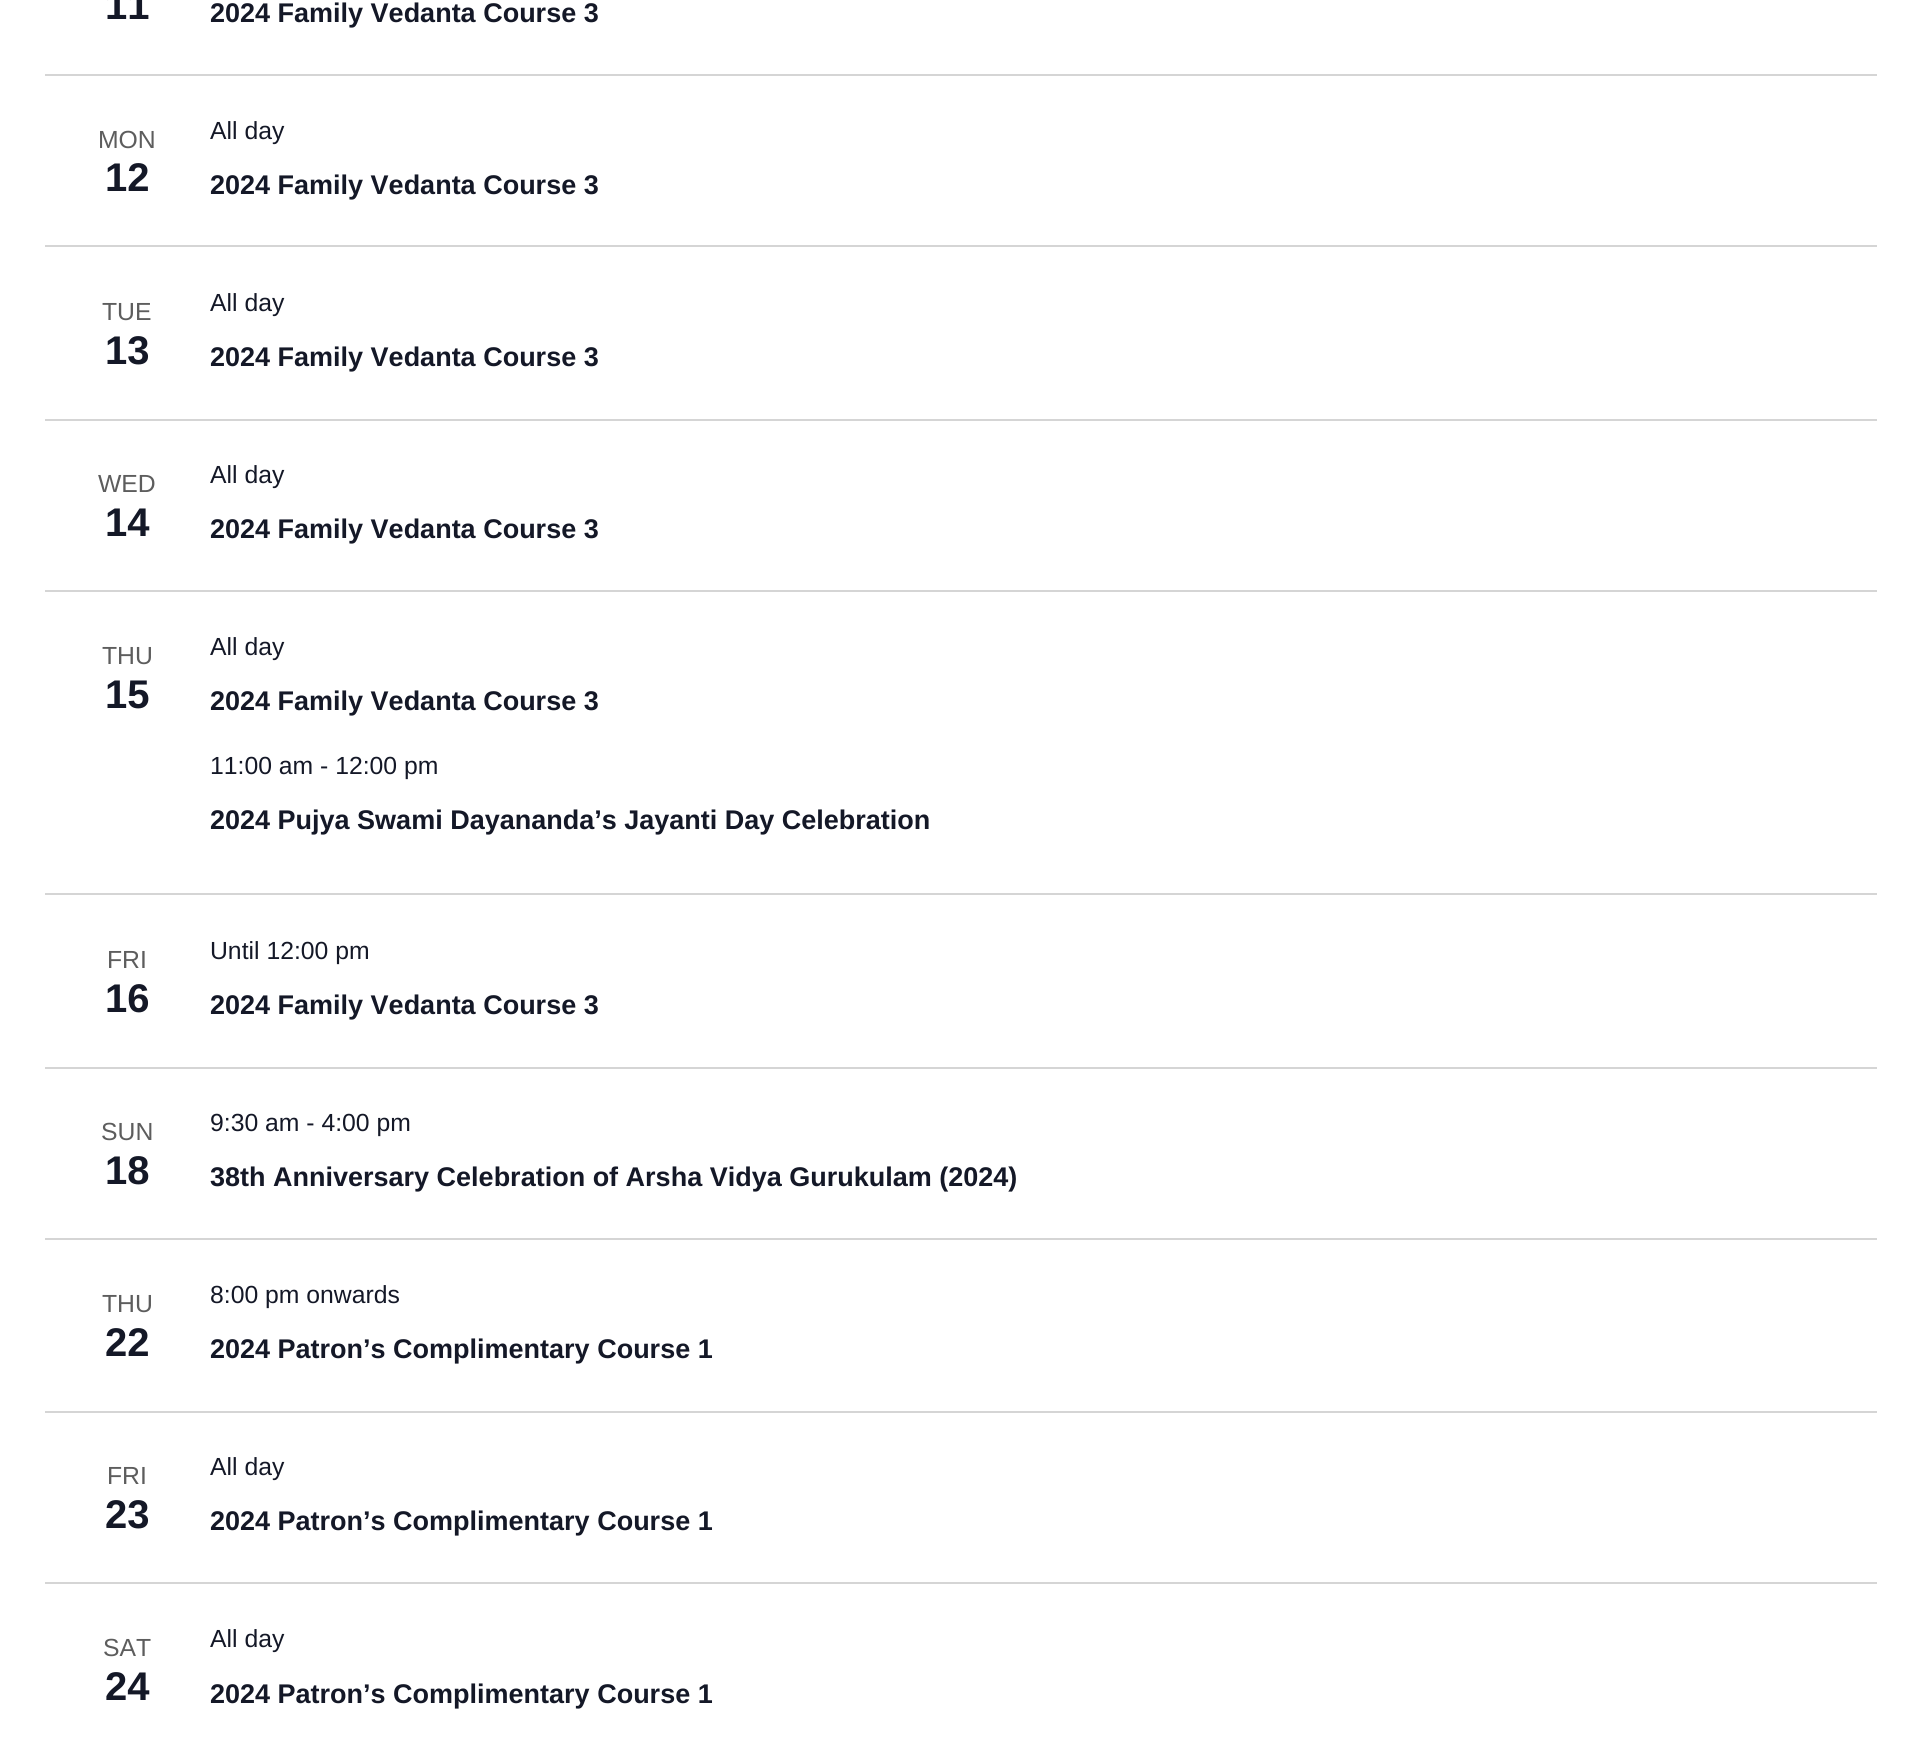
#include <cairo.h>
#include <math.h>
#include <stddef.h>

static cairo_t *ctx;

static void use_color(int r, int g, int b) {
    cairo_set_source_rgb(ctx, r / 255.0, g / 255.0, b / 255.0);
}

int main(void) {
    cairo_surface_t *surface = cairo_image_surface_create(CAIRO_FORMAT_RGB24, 1919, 1755);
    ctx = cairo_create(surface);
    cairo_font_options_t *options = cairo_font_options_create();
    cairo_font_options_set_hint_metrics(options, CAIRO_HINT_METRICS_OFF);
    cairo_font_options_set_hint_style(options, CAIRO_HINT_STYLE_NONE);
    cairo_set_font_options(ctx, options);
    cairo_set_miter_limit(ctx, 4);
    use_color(255, 255, 255);
    cairo_paint(ctx);
    cairo_select_font_face(ctx, "Liberation Sans", CAIRO_FONT_SLANT_NORMAL, CAIRO_FONT_WEIGHT_BOLD);
    cairo_set_font_size(ctx, 40);
    use_color(20, 24, 39);
    cairo_move_to(ctx, 105, 19);
    cairo_show_text(ctx, "11");
    cairo_set_font_size(ctx, 27);
    cairo_move_to(ctx, 210, 22);
    cairo_show_text(ctx, "2024 Family Vedanta Course 3");
    use_color(213, 213, 213);
    cairo_rectangle(ctx, 45, 74, 1832, 2);
    cairo_fill(ctx);
    cairo_select_font_face(ctx, "Liberation Sans", CAIRO_FONT_SLANT_NORMAL, CAIRO_FONT_WEIGHT_NORMAL);
    cairo_set_font_size(ctx, 24.75);
    use_color(93, 93, 93);
    cairo_move_to(ctx, 98, 148);
    cairo_show_text(ctx, "MON");
    cairo_select_font_face(ctx, "Liberation Sans", CAIRO_FONT_SLANT_NORMAL, CAIRO_FONT_WEIGHT_BOLD);
    cairo_set_font_size(ctx, 40);
    use_color(20, 24, 39);
    cairo_move_to(ctx, 105, 191);
    cairo_show_text(ctx, "12");
    cairo_select_font_face(ctx, "Liberation Sans", CAIRO_FONT_SLANT_NORMAL, CAIRO_FONT_WEIGHT_NORMAL);
    cairo_set_font_size(ctx, 24.75);
    cairo_move_to(ctx, 210, 139);
    cairo_show_text(ctx, "All day");
    cairo_select_font_face(ctx, "Liberation Sans", CAIRO_FONT_SLANT_NORMAL, CAIRO_FONT_WEIGHT_BOLD);
    cairo_set_font_size(ctx, 27);
    cairo_move_to(ctx, 210, 194);
    cairo_show_text(ctx, "2024 Family Vedanta Course 3");
    use_color(213, 213, 213);
    cairo_rectangle(ctx, 45, 245, 1832, 2);
    cairo_fill(ctx);
    cairo_select_font_face(ctx, "Liberation Sans", CAIRO_FONT_SLANT_NORMAL, CAIRO_FONT_WEIGHT_NORMAL);
    cairo_set_font_size(ctx, 24.75);
    use_color(93, 93, 93);
    cairo_move_to(ctx, 102, 320);
    cairo_show_text(ctx, "TUE");
    cairo_select_font_face(ctx, "Liberation Sans", CAIRO_FONT_SLANT_NORMAL, CAIRO_FONT_WEIGHT_BOLD);
    cairo_set_font_size(ctx, 40);
    use_color(20, 24, 39);
    cairo_move_to(ctx, 105, 364);
    cairo_show_text(ctx, "13");
    cairo_select_font_face(ctx, "Liberation Sans", CAIRO_FONT_SLANT_NORMAL, CAIRO_FONT_WEIGHT_NORMAL);
    cairo_set_font_size(ctx, 24.75);
    cairo_move_to(ctx, 210, 311);
    cairo_show_text(ctx, "All day");
    cairo_select_font_face(ctx, "Liberation Sans", CAIRO_FONT_SLANT_NORMAL, CAIRO_FONT_WEIGHT_BOLD);
    cairo_set_font_size(ctx, 27);
    cairo_move_to(ctx, 210, 366);
    cairo_show_text(ctx, "2024 Family Vedanta Course 3");
    use_color(213, 213, 213);
    cairo_rectangle(ctx, 45, 419, 1832, 2);
    cairo_fill(ctx);
    cairo_select_font_face(ctx, "Liberation Sans", CAIRO_FONT_SLANT_NORMAL, CAIRO_FONT_WEIGHT_NORMAL);
    cairo_set_font_size(ctx, 24.75);
    use_color(93, 93, 93);
    cairo_move_to(ctx, 98, 492);
    cairo_show_text(ctx, "WED");
    cairo_select_font_face(ctx, "Liberation Sans", CAIRO_FONT_SLANT_NORMAL, CAIRO_FONT_WEIGHT_BOLD);
    cairo_set_font_size(ctx, 40);
    use_color(20, 24, 39);
    cairo_move_to(ctx, 105, 536);
    cairo_show_text(ctx, "14");
    cairo_select_font_face(ctx, "Liberation Sans", CAIRO_FONT_SLANT_NORMAL, CAIRO_FONT_WEIGHT_NORMAL);
    cairo_set_font_size(ctx, 24.75);
    cairo_move_to(ctx, 210, 483);
    cairo_show_text(ctx, "All day");
    cairo_select_font_face(ctx, "Liberation Sans", CAIRO_FONT_SLANT_NORMAL, CAIRO_FONT_WEIGHT_BOLD);
    cairo_set_font_size(ctx, 27);
    cairo_move_to(ctx, 210, 538);
    cairo_show_text(ctx, "2024 Family Vedanta Course 3");
    use_color(213, 213, 213);
    cairo_rectangle(ctx, 45, 590, 1832, 2);
    cairo_fill(ctx);
    cairo_select_font_face(ctx, "Liberation Sans", CAIRO_FONT_SLANT_NORMAL, CAIRO_FONT_WEIGHT_NORMAL);
    cairo_set_font_size(ctx, 24.75);
    use_color(93, 93, 93);
    cairo_move_to(ctx, 102, 664);
    cairo_show_text(ctx, "THU");
    cairo_select_font_face(ctx, "Liberation Sans", CAIRO_FONT_SLANT_NORMAL, CAIRO_FONT_WEIGHT_BOLD);
    cairo_set_font_size(ctx, 40);
    use_color(20, 24, 39);
    cairo_move_to(ctx, 105, 708);
    cairo_show_text(ctx, "15");
    cairo_select_font_face(ctx, "Liberation Sans", CAIRO_FONT_SLANT_NORMAL, CAIRO_FONT_WEIGHT_NORMAL);
    cairo_set_font_size(ctx, 24.75);
    cairo_move_to(ctx, 210, 655);
    cairo_show_text(ctx, "All day");
    cairo_select_font_face(ctx, "Liberation Sans", CAIRO_FONT_SLANT_NORMAL, CAIRO_FONT_WEIGHT_BOLD);
    cairo_set_font_size(ctx, 27);
    cairo_move_to(ctx, 210, 710);
    cairo_show_text(ctx, "2024 Family Vedanta Course 3");
    cairo_select_font_face(ctx, "Liberation Sans", CAIRO_FONT_SLANT_NORMAL, CAIRO_FONT_WEIGHT_NORMAL);
    cairo_set_font_size(ctx, 24.75);
    cairo_move_to(ctx, 210, 774);
    cairo_show_text(ctx, "11:00 am - 12:00 pm");
    cairo_select_font_face(ctx, "Liberation Sans", CAIRO_FONT_SLANT_NORMAL, CAIRO_FONT_WEIGHT_BOLD);
    cairo_set_font_size(ctx, 27);
    cairo_move_to(ctx, 210, 829);
    cairo_show_text(ctx, "2024 Pujya Swami Dayananda’s Jayanti Day Celebration");
    use_color(213, 213, 213);
    cairo_rectangle(ctx, 45, 893, 1832, 2);
    cairo_fill(ctx);
    cairo_select_font_face(ctx, "Liberation Sans", CAIRO_FONT_SLANT_NORMAL, CAIRO_FONT_WEIGHT_NORMAL);
    cairo_set_font_size(ctx, 24.75);
    use_color(93, 93, 93);
    cairo_move_to(ctx, 107, 968);
    cairo_show_text(ctx, "FRI");
    cairo_select_font_face(ctx, "Liberation Sans", CAIRO_FONT_SLANT_NORMAL, CAIRO_FONT_WEIGHT_BOLD);
    cairo_set_font_size(ctx, 40);
    use_color(20, 24, 39);
    cairo_move_to(ctx, 105, 1012);
    cairo_show_text(ctx, "16");
    cairo_select_font_face(ctx, "Liberation Sans", CAIRO_FONT_SLANT_NORMAL, CAIRO_FONT_WEIGHT_NORMAL);
    cairo_set_font_size(ctx, 24.75);
    cairo_move_to(ctx, 210, 959);
    cairo_show_text(ctx, "Until 12:00 pm");
    cairo_select_font_face(ctx, "Liberation Sans", CAIRO_FONT_SLANT_NORMAL, CAIRO_FONT_WEIGHT_BOLD);
    cairo_set_font_size(ctx, 27);
    cairo_move_to(ctx, 210, 1014);
    cairo_show_text(ctx, "2024 Family Vedanta Course 3");
    use_color(213, 213, 213);
    cairo_rectangle(ctx, 45, 1067, 1832, 2);
    cairo_fill(ctx);
    cairo_select_font_face(ctx, "Liberation Sans", CAIRO_FONT_SLANT_NORMAL, CAIRO_FONT_WEIGHT_NORMAL);
    cairo_set_font_size(ctx, 24.75);
    use_color(93, 93, 93);
    cairo_move_to(ctx, 101, 1140);
    cairo_show_text(ctx, "SUN");
    cairo_select_font_face(ctx, "Liberation Sans", CAIRO_FONT_SLANT_NORMAL, CAIRO_FONT_WEIGHT_BOLD);
    cairo_set_font_size(ctx, 40);
    use_color(20, 24, 39);
    cairo_move_to(ctx, 105, 1184);
    cairo_show_text(ctx, "18");
    cairo_select_font_face(ctx, "Liberation Sans", CAIRO_FONT_SLANT_NORMAL, CAIRO_FONT_WEIGHT_NORMAL);
    cairo_set_font_size(ctx, 24.75);
    cairo_move_to(ctx, 210, 1131);
    cairo_show_text(ctx, "9:30 am - 4:00 pm");
    cairo_select_font_face(ctx, "Liberation Sans", CAIRO_FONT_SLANT_NORMAL, CAIRO_FONT_WEIGHT_BOLD);
    cairo_set_font_size(ctx, 27);
    cairo_move_to(ctx, 210, 1186);
    cairo_show_text(ctx, "38th Anniversary Celebration of Arsha Vidya Gurukulam (2024)");
    use_color(213, 213, 213);
    cairo_rectangle(ctx, 45, 1238, 1832, 2);
    cairo_fill(ctx);
    cairo_select_font_face(ctx, "Liberation Sans", CAIRO_FONT_SLANT_NORMAL, CAIRO_FONT_WEIGHT_NORMAL);
    cairo_set_font_size(ctx, 24.75);
    use_color(93, 93, 93);
    cairo_move_to(ctx, 102, 1312);
    cairo_show_text(ctx, "THU");
    cairo_select_font_face(ctx, "Liberation Sans", CAIRO_FONT_SLANT_NORMAL, CAIRO_FONT_WEIGHT_BOLD);
    cairo_set_font_size(ctx, 40);
    use_color(20, 24, 39);
    cairo_move_to(ctx, 105, 1356);
    cairo_show_text(ctx, "22");
    cairo_select_font_face(ctx, "Liberation Sans", CAIRO_FONT_SLANT_NORMAL, CAIRO_FONT_WEIGHT_NORMAL);
    cairo_set_font_size(ctx, 24.75);
    cairo_move_to(ctx, 210, 1303);
    cairo_show_text(ctx, "8:00 pm onwards");
    cairo_select_font_face(ctx, "Liberation Sans", CAIRO_FONT_SLANT_NORMAL, CAIRO_FONT_WEIGHT_BOLD);
    cairo_set_font_size(ctx, 27);
    cairo_move_to(ctx, 210, 1358);
    cairo_show_text(ctx, "2024 Patron’s Complimentary Course 1");
    use_color(213, 213, 213);
    cairo_rectangle(ctx, 45, 1411, 1832, 2);
    cairo_fill(ctx);
    cairo_select_font_face(ctx, "Liberation Sans", CAIRO_FONT_SLANT_NORMAL, CAIRO_FONT_WEIGHT_NORMAL);
    cairo_set_font_size(ctx, 24.75);
    use_color(93, 93, 93);
    cairo_move_to(ctx, 107, 1484);
    cairo_show_text(ctx, "FRI");
    cairo_select_font_face(ctx, "Liberation Sans", CAIRO_FONT_SLANT_NORMAL, CAIRO_FONT_WEIGHT_BOLD);
    cairo_set_font_size(ctx, 40);
    use_color(20, 24, 39);
    cairo_move_to(ctx, 105, 1528);
    cairo_show_text(ctx, "23");
    cairo_select_font_face(ctx, "Liberation Sans", CAIRO_FONT_SLANT_NORMAL, CAIRO_FONT_WEIGHT_NORMAL);
    cairo_set_font_size(ctx, 24.75);
    cairo_move_to(ctx, 210, 1475);
    cairo_show_text(ctx, "All day");
    cairo_select_font_face(ctx, "Liberation Sans", CAIRO_FONT_SLANT_NORMAL, CAIRO_FONT_WEIGHT_BOLD);
    cairo_set_font_size(ctx, 27);
    cairo_move_to(ctx, 210, 1530);
    cairo_show_text(ctx, "2024 Patron’s Complimentary Course 1");
    use_color(213, 213, 213);
    cairo_rectangle(ctx, 45, 1582, 1832, 2);
    cairo_fill(ctx);
    cairo_select_font_face(ctx, "Liberation Sans", CAIRO_FONT_SLANT_NORMAL, CAIRO_FONT_WEIGHT_NORMAL);
    cairo_set_font_size(ctx, 24.75);
    use_color(93, 93, 93);
    cairo_move_to(ctx, 103, 1656);
    cairo_show_text(ctx, "SAT");
    cairo_select_font_face(ctx, "Liberation Sans", CAIRO_FONT_SLANT_NORMAL, CAIRO_FONT_WEIGHT_BOLD);
    cairo_set_font_size(ctx, 40);
    use_color(20, 24, 39);
    cairo_move_to(ctx, 105, 1700);
    cairo_show_text(ctx, "24");
    cairo_select_font_face(ctx, "Liberation Sans", CAIRO_FONT_SLANT_NORMAL, CAIRO_FONT_WEIGHT_NORMAL);
    cairo_set_font_size(ctx, 24.75);
    cairo_move_to(ctx, 210, 1647);
    cairo_show_text(ctx, "All day");
    cairo_select_font_face(ctx, "Liberation Sans", CAIRO_FONT_SLANT_NORMAL, CAIRO_FONT_WEIGHT_BOLD);
    cairo_set_font_size(ctx, 27);
    cairo_move_to(ctx, 210, 1703);
    cairo_show_text(ctx, "2024 Patron’s Complimentary Course 1");
    cairo_surface_write_to_png(surface, "result.png");
    cairo_font_options_destroy(options);
    cairo_destroy(ctx);
    cairo_surface_destroy(surface);
    return 0;
}
